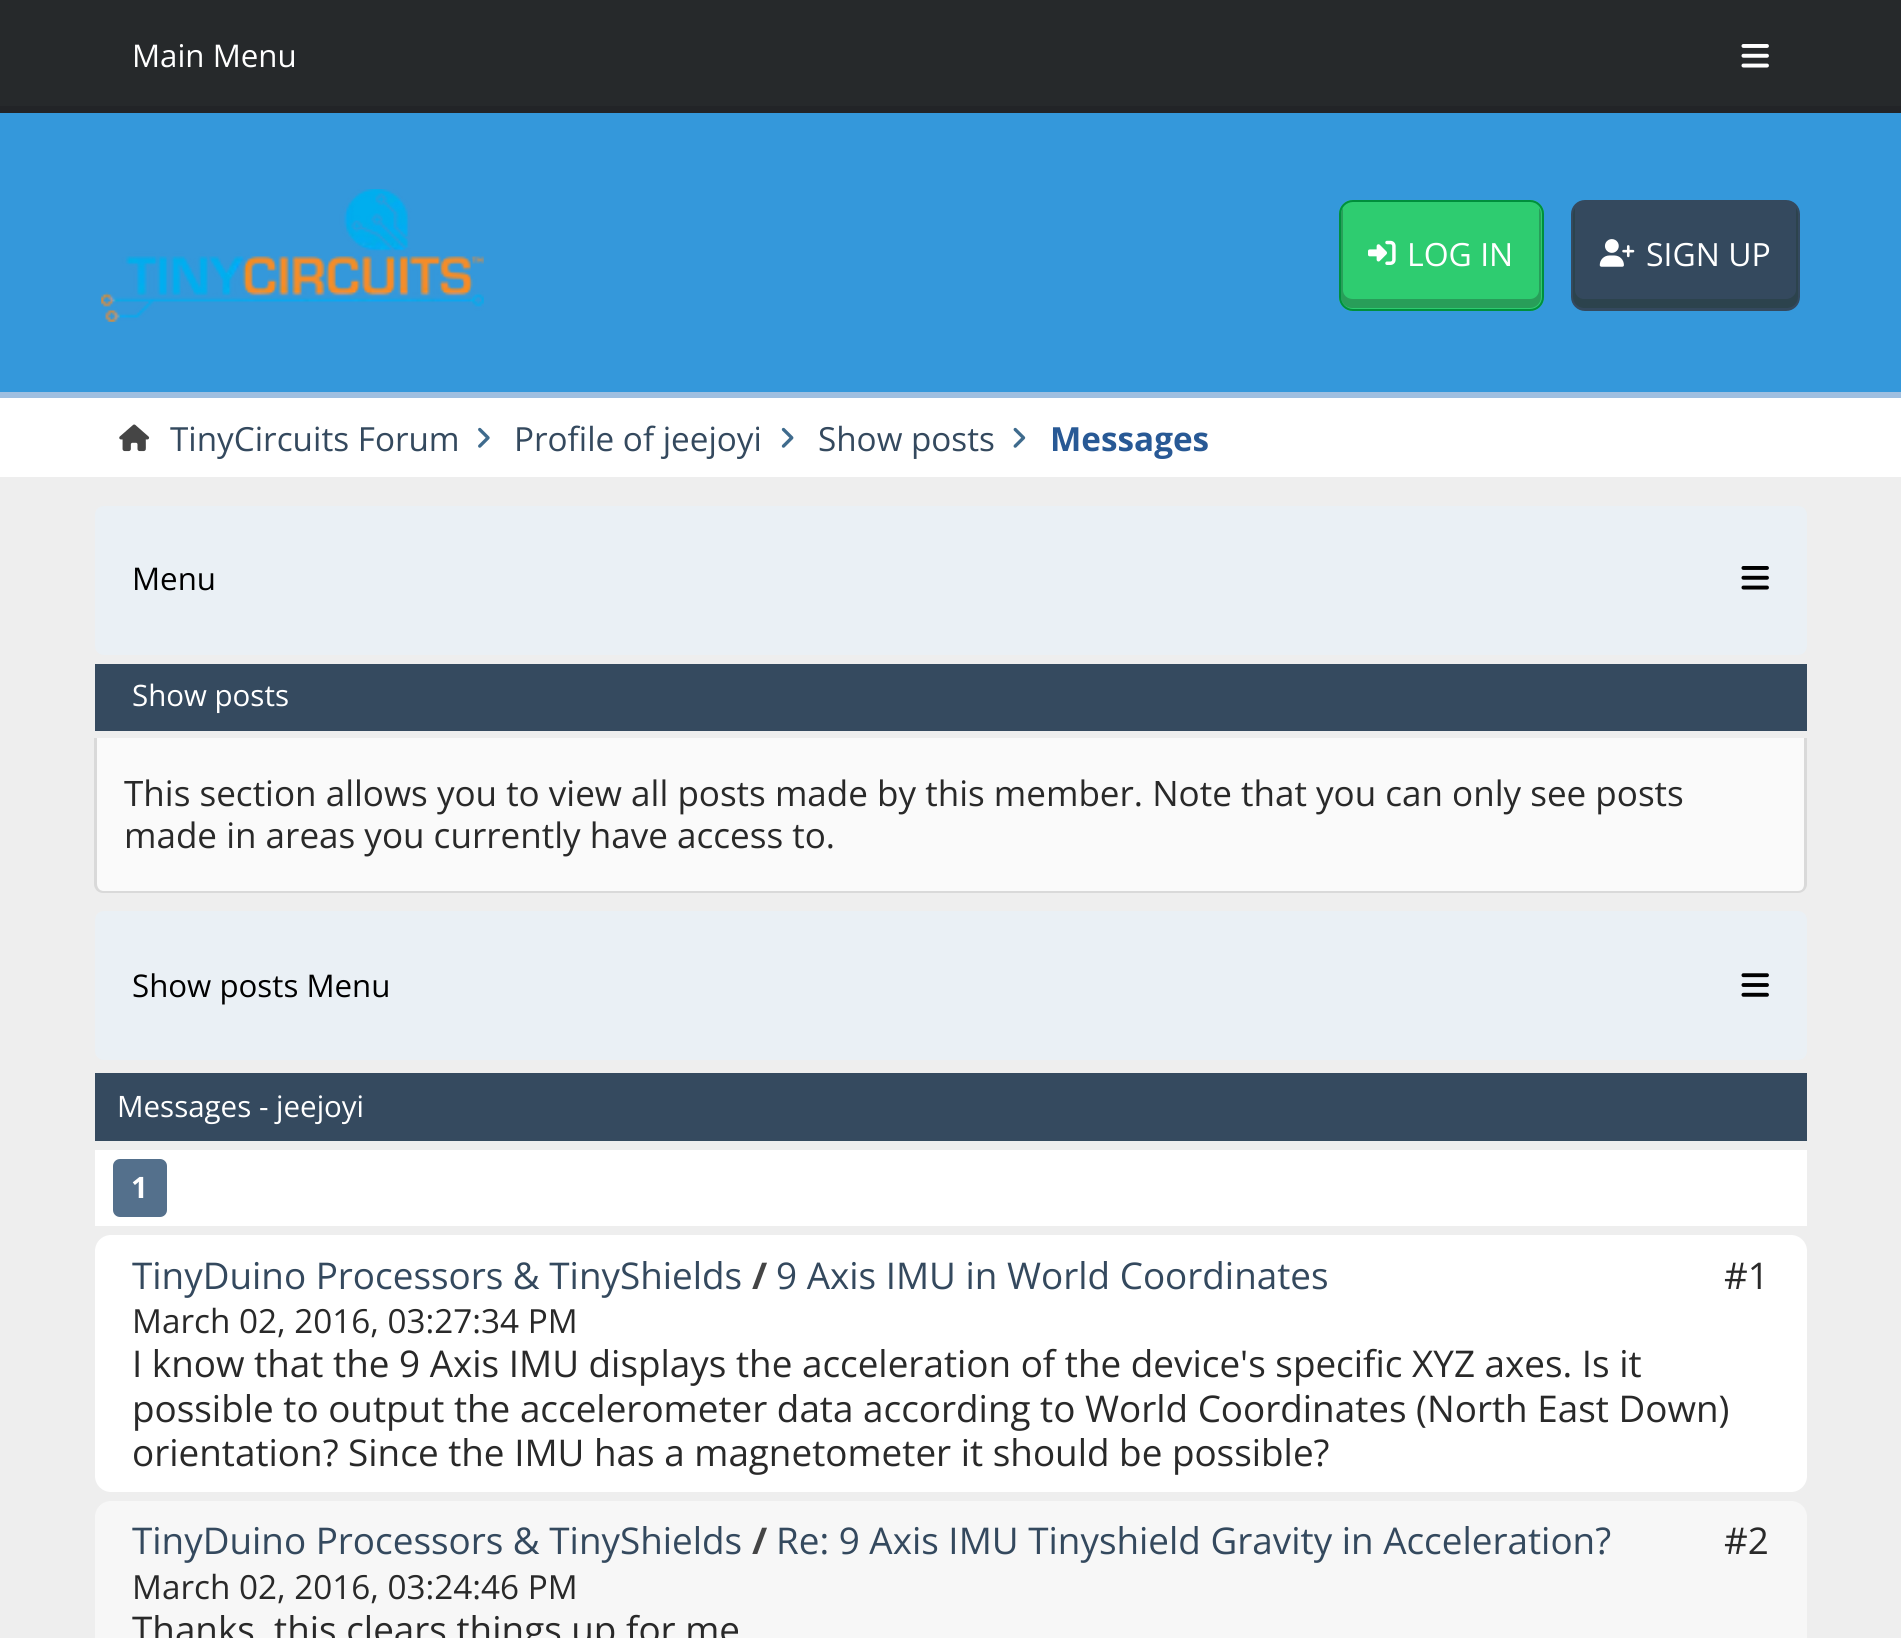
#include <cairo.h>
#include <math.h>
#include <stddef.h>

static cairo_t *ctx;

static void use_color(int r, int g, int b) {
    cairo_set_source_rgb(ctx, r / 255.0, g / 255.0, b / 255.0);
}

static void round_rect(double x, double y, double w, double h, double r) {
    cairo_new_sub_path(ctx);
    cairo_arc(ctx, x + w - r, y + h - r, r, 0, M_PI / 2);
    cairo_arc(ctx, x + r, y + h - r, r, M_PI / 2, M_PI);
    cairo_arc(ctx, x + r, y + r, r, M_PI, 1.5 * M_PI);
    cairo_arc(ctx, x + w - r, y + r, r, 1.5 * M_PI, 2 * M_PI);
    cairo_close_path(ctx);
}

static void picture(const char *path, double x, double y, double w, double h) {
    cairo_surface_t *image = cairo_image_surface_create_from_png(path);
    cairo_save(ctx);
    cairo_set_source_surface(ctx, image, x, y);
    cairo_rectangle(ctx, x, y, w, h);
    cairo_fill(ctx);
    cairo_restore(ctx);
    cairo_surface_destroy(image);
}

int main(void) {
    cairo_surface_t *surface = cairo_image_surface_create(CAIRO_FORMAT_RGB24, 1901, 1638);
    ctx = cairo_create(surface);
    cairo_font_options_t *options = cairo_font_options_create();
    cairo_font_options_set_hint_metrics(options, CAIRO_HINT_METRICS_OFF);
    cairo_font_options_set_hint_style(options, CAIRO_HINT_STYLE_NONE);
    cairo_set_font_options(ctx, options);
    cairo_set_miter_limit(ctx, 4);
    use_color(238, 238, 238);
    cairo_paint(ctx);
    use_color(38, 41, 43);
    cairo_rectangle(ctx, 0, 0, 1901, 106);
    cairo_fill(ctx);
    use_color(34, 36, 39);
    cairo_rectangle(ctx, 0, 106, 1901, 7);
    cairo_fill(ctx);
    cairo_select_font_face(ctx, "Open Sans", CAIRO_FONT_SLANT_NORMAL, CAIRO_FONT_WEIGHT_NORMAL);
    cairo_set_font_size(ctx, 31.25);
    use_color(255, 255, 255);
    cairo_move_to(ctx, 132, 67);
    cairo_show_text(ctx, "Main Menu");
    picture("img1.png", 1741, 44, 28, 24);
    use_color(52, 152, 219);
    cairo_rectangle(ctx, 0, 113, 1901, 279);
    cairo_fill(ctx);
    use_color(159, 191, 224);
    cairo_rectangle(ctx, 0, 392, 1901, 6);
    cairo_fill(ctx);
    picture("img2.png", 101, 189, 383, 133);
    use_color(46, 204, 112);
    round_rect(1339, 200, 205, 111, 14);
    cairo_fill(ctx);
    use_color(40, 158, 89);
    cairo_new_path(ctx);
    cairo_move_to(ctx, 1343, 208);
    cairo_curve_to(ctx, 1342, 209, 1341, 212, 1341, 214);
    cairo_line_to(ctx, 1341, 297);
    cairo_curve_to(ctx, 1341, 303, 1346, 308, 1352, 308);
    cairo_line_to(ctx, 1530, 308);
    cairo_curve_to(ctx, 1536, 308, 1541, 303, 1541, 297);
    cairo_line_to(ctx, 1541, 214);
    cairo_curve_to(ctx, 1541, 212, 1540, 209, 1539, 208);
    cairo_line_to(ctx, 1539, 290);
    cairo_curve_to(ctx, 1539, 295, 1535, 299, 1530, 299);
    cairo_line_to(ctx, 1353, 299);
    cairo_curve_to(ctx, 1347, 299, 1343, 295, 1343, 290);
    cairo_close_path(ctx);
    cairo_fill(ctx);
    round_rect(1340, 201, 203, 109, 13);
    use_color(0, 143, 60);
    cairo_stroke(ctx);
    picture("img3.png", 1368, 240, 28, 25);
    cairo_set_font_size(ctx, 32);
    use_color(255, 255, 255);
    cairo_move_to(ctx, 1407, 266);
    cairo_show_text(ctx, "LOG IN");
    use_color(52, 73, 94);
    round_rect(1571, 200, 229, 111, 14);
    cairo_fill(ctx);
    use_color(44, 67, 77);
    cairo_new_path(ctx);
    cairo_move_to(ctx, 1575, 208);
    cairo_curve_to(ctx, 1574, 209, 1573, 212, 1573, 214);
    cairo_line_to(ctx, 1573, 297);
    cairo_curve_to(ctx, 1573, 303, 1578, 308, 1584, 308);
    cairo_line_to(ctx, 1787, 308);
    cairo_curve_to(ctx, 1793, 308, 1798, 303, 1798, 297);
    cairo_line_to(ctx, 1798, 214);
    cairo_curve_to(ctx, 1798, 212, 1797, 209, 1796, 208);
    cairo_line_to(ctx, 1796, 290);
    cairo_curve_to(ctx, 1796, 295, 1791, 299, 1786, 299);
    cairo_line_to(ctx, 1584, 299);
    cairo_curve_to(ctx, 1579, 299, 1575, 295, 1575, 290);
    cairo_close_path(ctx);
    cairo_fill(ctx);
    picture("img4.png", 1599, 239, 36, 28);
    use_color(255, 255, 255);
    cairo_move_to(ctx, 1646, 266);
    cairo_show_text(ctx, "SIGN UP");
    cairo_rectangle(ctx, 0, 398, 1901, 79);
    cairo_fill(ctx);
    picture("img5.png", 119, 424, 31, 28);
    cairo_set_font_size(ctx, 33.25);
    use_color(52, 73, 94);
    cairo_move_to(ctx, 170, 451);
    cairo_show_text(ctx, "TinyCircuits Forum");
    picture("img6.png", 478, 427, 12, 21);
    cairo_move_to(ctx, 514, 451);
    cairo_show_text(ctx, "Profile of jeejoyi");
    picture("img7.png", 781, 427, 13, 21);
    cairo_move_to(ctx, 818, 451);
    cairo_show_text(ctx, "Show posts");
    picture("img8.png", 1013, 427, 13, 21);
    cairo_select_font_face(ctx, "Open Sans", CAIRO_FONT_SLANT_NORMAL, CAIRO_FONT_WEIGHT_BOLD);
    use_color(40, 89, 149);
    cairo_move_to(ctx, 1050, 451);
    cairo_show_text(ctx, "Messages");
    use_color(234, 240, 245);
    round_rect(95, 506, 1712, 149, 9);
    cairo_fill(ctx);
    cairo_select_font_face(ctx, "Open Sans", CAIRO_FONT_SLANT_NORMAL, CAIRO_FONT_WEIGHT_NORMAL);
    cairo_set_font_size(ctx, 31.25);
    use_color(0, 0, 0);
    cairo_move_to(ctx, 132, 590);
    cairo_show_text(ctx, "Menu");
    picture("img9.png", 1741, 566, 28, 24);
    use_color(53, 74, 95);
    cairo_rectangle(ctx, 95, 664, 1712, 67);
    cairo_fill(ctx);
    cairo_set_font_size(ctx, 29.5);
    use_color(255, 255, 255);
    cairo_move_to(ctx, 132, 706);
    cairo_show_text(ctx, "Show posts");
    use_color(250, 250, 250);
    cairo_new_path(ctx);
    cairo_move_to(ctx, 97, 738);
    cairo_line_to(ctx, 1805, 738);
    cairo_line_to(ctx, 1805, 884);
    cairo_curve_to(ctx, 1805, 888, 1802, 891, 1798, 891);
    cairo_line_to(ctx, 104, 891);
    cairo_curve_to(ctx, 100, 891, 97, 888, 97, 884);
    cairo_close_path(ctx);
    cairo_fill(ctx);
    use_color(217, 217, 217);
    cairo_set_fill_rule(ctx, CAIRO_FILL_RULE_EVEN_ODD);
    cairo_new_path(ctx);
    cairo_move_to(ctx, 94, 738);
    cairo_line_to(ctx, 1807, 738);
    cairo_line_to(ctx, 1807, 884);
    cairo_curve_to(ctx, 1807, 889, 1803, 893, 1798, 893);
    cairo_line_to(ctx, 103, 893);
    cairo_curve_to(ctx, 98, 893, 94, 889, 94, 884);
    cairo_close_path(ctx);
    cairo_move_to(ctx, 97, 738);
    cairo_line_to(ctx, 1804, 738);
    cairo_line_to(ctx, 1804, 884);
    cairo_curve_to(ctx, 1804, 888, 1802, 891, 1798, 891);
    cairo_line_to(ctx, 103, 891);
    cairo_curve_to(ctx, 100, 891, 97, 888, 97, 884);
    cairo_close_path(ctx);
    cairo_fill(ctx);
    cairo_set_font_size(ctx, 35.05);
    use_color(41, 41, 41);
    cairo_move_to(ctx, 124, 806);
    cairo_show_text(ctx, "This section allows you to view all posts made by this member. Note that you can only see posts");
    cairo_move_to(ctx, 124, 848);
    cairo_show_text(ctx, "made in areas you currently have access to.");
    use_color(234, 240, 245);
    round_rect(95, 911, 1712, 149, 9);
    cairo_fill(ctx);
    cairo_set_font_size(ctx, 31.25);
    use_color(0, 0, 0);
    cairo_move_to(ctx, 132, 997);
    cairo_show_text(ctx, "Show posts Menu");
    picture("img10.png", 1741, 973, 28, 24);
    use_color(53, 74, 95);
    cairo_rectangle(ctx, 95, 1073, 1712, 68);
    cairo_fill(ctx);
    cairo_set_font_size(ctx, 29.5);
    use_color(255, 255, 255);
    cairo_move_to(ctx, 117, 1117);
    cairo_show_text(ctx, "Messages - jeejoyi");
    cairo_rectangle(ctx, 95, 1150, 1712, 76);
    cairo_fill(ctx);
    use_color(84, 112, 140);
    round_rect(113, 1159, 54, 58, 7);
    cairo_fill(ctx);
    cairo_select_font_face(ctx, "Open Sans", CAIRO_FONT_SLANT_NORMAL, CAIRO_FONT_WEIGHT_BOLD);
    use_color(255, 255, 255);
    cairo_move_to(ctx, 131, 1198);
    cairo_show_text(ctx, "1");
    round_rect(95, 1235, 1712, 257, 16);
    cairo_fill(ctx);
    cairo_select_font_face(ctx, "Open Sans", CAIRO_FONT_SLANT_NORMAL, CAIRO_FONT_WEIGHT_NORMAL);
    cairo_set_font_size(ctx, 36.85);
    use_color(52, 73, 94);
    cairo_move_to(ctx, 132, 1289);
    cairo_show_text(ctx, "TinyDuino Processors & TinyShields");
    cairo_select_font_face(ctx, "Open Sans", CAIRO_FONT_SLANT_NORMAL, CAIRO_FONT_WEIGHT_BOLD);
    use_color(69, 69, 69);
    cairo_move_to(ctx, 752, 1289);
    cairo_show_text(ctx, "/");
    cairo_select_font_face(ctx, "Open Sans", CAIRO_FONT_SLANT_NORMAL, CAIRO_FONT_WEIGHT_NORMAL);
    use_color(52, 73, 94);
    cairo_move_to(ctx, 776, 1289);
    cairo_show_text(ctx, "9 Axis IMU in World Coordinates");
    cairo_set_font_size(ctx, 33.25);
    use_color(41, 41, 41);
    cairo_move_to(ctx, 132, 1333);
    cairo_show_text(ctx, "March 02, 2016, 03:27:34 PM");
    cairo_set_font_size(ctx, 36.85);
    cairo_move_to(ctx, 1724, 1289);
    cairo_show_text(ctx, "#1");
    cairo_move_to(ctx, 132, 1377);
    cairo_show_text(ctx, "I know that the 9 Axis IMU displays the acceleration of the device's specific XYZ axes. Is it");
    cairo_move_to(ctx, 132, 1422);
    cairo_show_text(ctx, "possible to output the accelerometer data according to World Coordinates (North East Down)");
    cairo_move_to(ctx, 132, 1466);
    cairo_show_text(ctx, "orientation? Since the IMU has a magnetometer it should be possible?");
    use_color(247, 247, 247);
    round_rect(95, 1501, 1712, 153, 16);
    cairo_fill(ctx);
    use_color(52, 73, 94);
    cairo_move_to(ctx, 132, 1554);
    cairo_show_text(ctx, "TinyDuino Processors & TinyShields");
    cairo_select_font_face(ctx, "Open Sans", CAIRO_FONT_SLANT_NORMAL, CAIRO_FONT_WEIGHT_BOLD);
    use_color(69, 69, 69);
    cairo_move_to(ctx, 752, 1554);
    cairo_show_text(ctx, "/");
    cairo_select_font_face(ctx, "Open Sans", CAIRO_FONT_SLANT_NORMAL, CAIRO_FONT_WEIGHT_NORMAL);
    use_color(52, 73, 94);
    cairo_move_to(ctx, 776, 1554);
    cairo_show_text(ctx, "Re: 9 Axis IMU Tinyshield Gravity in Acceleration?");
    cairo_set_font_size(ctx, 33.25);
    use_color(41, 41, 41);
    cairo_move_to(ctx, 132, 1599);
    cairo_show_text(ctx, "March 02, 2016, 03:24:46 PM");
    cairo_set_font_size(ctx, 36.85);
    cairo_move_to(ctx, 1724, 1554);
    cairo_show_text(ctx, "#2");
    cairo_move_to(ctx, 132, 1643);
    cairo_show_text(ctx, "Thanks, this clears things up for me");
    cairo_surface_write_to_png(surface, "result.png");
    cairo_font_options_destroy(options);
    cairo_destroy(ctx);
    cairo_surface_destroy(surface);
    return 0;
}
